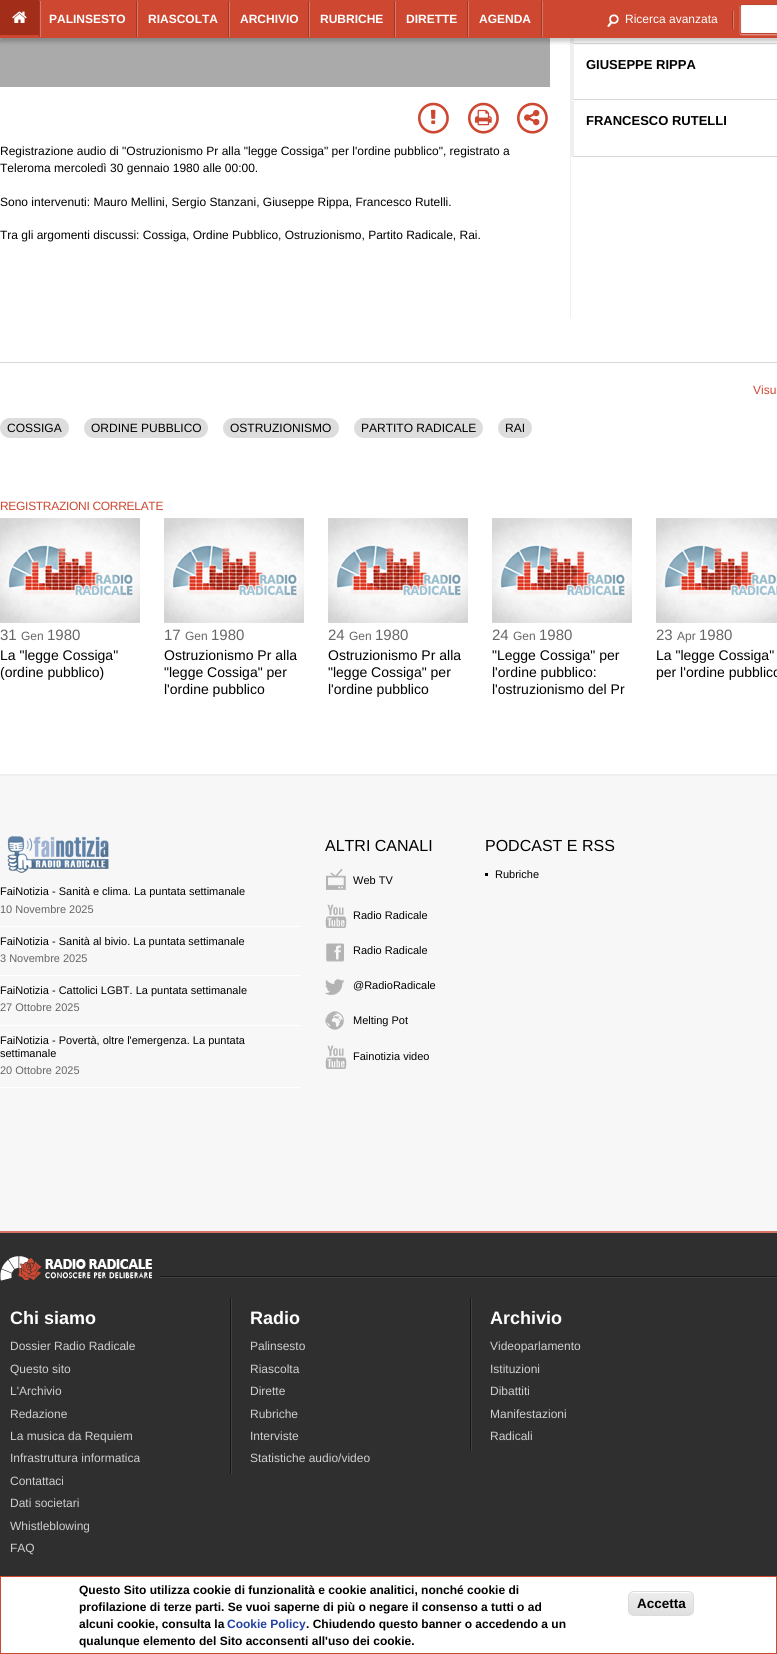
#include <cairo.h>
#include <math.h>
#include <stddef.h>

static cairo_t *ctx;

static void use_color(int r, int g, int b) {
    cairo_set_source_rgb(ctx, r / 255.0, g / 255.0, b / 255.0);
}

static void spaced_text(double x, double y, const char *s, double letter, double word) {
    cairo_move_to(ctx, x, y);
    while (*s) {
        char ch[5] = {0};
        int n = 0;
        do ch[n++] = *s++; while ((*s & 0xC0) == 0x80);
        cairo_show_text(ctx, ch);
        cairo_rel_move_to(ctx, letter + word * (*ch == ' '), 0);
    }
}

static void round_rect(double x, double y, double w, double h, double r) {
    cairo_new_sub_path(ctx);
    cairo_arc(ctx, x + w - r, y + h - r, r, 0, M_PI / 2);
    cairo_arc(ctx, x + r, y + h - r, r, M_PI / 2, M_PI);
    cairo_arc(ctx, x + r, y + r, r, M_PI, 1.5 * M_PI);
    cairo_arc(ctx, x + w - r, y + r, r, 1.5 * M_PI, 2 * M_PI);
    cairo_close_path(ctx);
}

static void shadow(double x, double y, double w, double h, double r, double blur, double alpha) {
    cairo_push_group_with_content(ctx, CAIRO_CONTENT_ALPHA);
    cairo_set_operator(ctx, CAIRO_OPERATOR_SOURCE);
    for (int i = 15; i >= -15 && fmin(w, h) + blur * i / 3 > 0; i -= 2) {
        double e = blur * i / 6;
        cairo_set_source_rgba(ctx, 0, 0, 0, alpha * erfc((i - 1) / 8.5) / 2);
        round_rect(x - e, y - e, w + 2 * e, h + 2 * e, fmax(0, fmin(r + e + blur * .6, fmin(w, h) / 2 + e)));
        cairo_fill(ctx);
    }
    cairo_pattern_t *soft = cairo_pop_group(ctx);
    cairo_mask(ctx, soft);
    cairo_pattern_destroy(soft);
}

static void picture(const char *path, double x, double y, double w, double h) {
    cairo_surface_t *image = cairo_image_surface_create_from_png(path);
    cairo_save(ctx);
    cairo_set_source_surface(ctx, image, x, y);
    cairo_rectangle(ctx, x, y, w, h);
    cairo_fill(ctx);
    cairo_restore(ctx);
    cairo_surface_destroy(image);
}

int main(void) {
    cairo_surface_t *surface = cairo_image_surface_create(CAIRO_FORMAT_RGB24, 777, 1654);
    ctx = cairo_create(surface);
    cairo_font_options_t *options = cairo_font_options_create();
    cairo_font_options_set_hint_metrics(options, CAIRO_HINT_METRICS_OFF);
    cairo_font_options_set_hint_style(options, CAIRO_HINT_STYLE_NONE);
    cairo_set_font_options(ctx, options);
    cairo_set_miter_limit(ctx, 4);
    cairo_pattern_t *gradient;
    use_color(255, 255, 255);
    cairo_paint(ctx);
    use_color(239, 239, 239);
    cairo_rectangle(ctx, 570, 38, 1, 280);
    cairo_fill(ctx);
    use_color(215, 215, 215);
    cairo_new_path(ctx);
    cairo_move_to(ctx, 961, 44);
    cairo_line_to(ctx, 571, 44);
    cairo_line_to(ctx, 574, 43);
    cairo_line_to(ctx, 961, 43);
    cairo_close_path(ctx);
    cairo_fill(ctx);
    use_color(239, 239, 239);
    cairo_new_path(ctx);
    cairo_move_to(ctx, 571, 44);
    cairo_line_to(ctx, 571, -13);
    cairo_line_to(ctx, 574, -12);
    cairo_line_to(ctx, 574, 43);
    cairo_close_path(ctx);
    cairo_fill(ctx);
    use_color(215, 215, 215);
    cairo_new_path(ctx);
    cairo_move_to(ctx, 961, 100);
    cairo_line_to(ctx, 571, 100);
    cairo_line_to(ctx, 574, 99);
    cairo_line_to(ctx, 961, 99);
    cairo_close_path(ctx);
    cairo_fill(ctx);
    use_color(239, 239, 239);
    cairo_new_path(ctx);
    cairo_move_to(ctx, 571, 100);
    cairo_line_to(ctx, 571, 44);
    cairo_line_to(ctx, 574, 45);
    cairo_line_to(ctx, 574, 99);
    cairo_close_path(ctx);
    cairo_fill(ctx);
    use_color(170, 170, 170);
    cairo_rectangle(ctx, 0, 38, 550, 49);
    cairo_fill(ctx);
    use_color(0, 0, 0);
    shadow(0, 4, 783, 38, 0, 2, 0.2);
    use_color(205, 71, 49);
    cairo_rectangle(ctx, 0, 0, 777, 38);
    cairo_fill(ctx);
    use_color(162, 45, 25);
    cairo_rectangle(ctx, 0, 0, 39, 35);
    cairo_fill(ctx);
    picture("img1.png", 12, 11, 15, 12);
    picture("img2.png", 39, 1, 2, 36);
    picture("img2.png", 136, 1, 2, 36);
    cairo_select_font_face(ctx, "Liberation Sans", CAIRO_FONT_SLANT_NORMAL, CAIRO_FONT_WEIGHT_BOLD);
    cairo_set_font_size(ctx, 12);
    use_color(255, 255, 255);
    cairo_move_to(ctx, 49, 23);
    cairo_show_text(ctx, "PALINSESTO");
    picture("img2.png", 228, 1, 2, 36);
    cairo_move_to(ctx, 148, 23);
    cairo_show_text(ctx, "RIASCOLTA");
    picture("img2.png", 308, 1, 2, 36);
    cairo_move_to(ctx, 240, 23);
    cairo_show_text(ctx, "ARCHIVIO");
    picture("img2.png", 394, 1, 2, 36);
    cairo_move_to(ctx, 320, 23);
    cairo_show_text(ctx, "RUBRICHE");
    picture("img2.png", 467, 1, 2, 36);
    cairo_move_to(ctx, 406, 23);
    cairo_show_text(ctx, "DIRETTE");
    picture("img2.png", 541, 1, 2, 36);
    cairo_move_to(ctx, 479, 23);
    cairo_show_text(ctx, "AGENDA");
    picture("img3.png", 607, 11, 127, 18);
    cairo_select_font_face(ctx, "Liberation Sans", CAIRO_FONT_SLANT_NORMAL, CAIRO_FONT_WEIGHT_NORMAL);
    cairo_move_to(ctx, 625, 23);
    cairo_show_text(ctx, "Ricerca avanzata");
    picture("img4.png", 739, 4, 38, 32);
    use_color(215, 215, 215);
    cairo_rectangle(ctx, 0, 362, 777, 1);
    cairo_fill(ctx);
    cairo_select_font_face(ctx, "Liberation Sans", CAIRO_FONT_SLANT_NORMAL, CAIRO_FONT_WEIGHT_BOLD);
    cairo_set_font_size(ctx, 13);
    use_color(0, 0, 0);
    cairo_move_to(ctx, 586, 69);
    cairo_show_text(ctx, "GIUSEPPE RIPPA");
    use_color(215, 215, 215);
    cairo_new_path(ctx);
    cairo_move_to(ctx, 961, 157);
    cairo_line_to(ctx, 571, 157);
    cairo_line_to(ctx, 574, 156);
    cairo_line_to(ctx, 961, 156);
    cairo_close_path(ctx);
    cairo_fill(ctx);
    use_color(239, 239, 239);
    cairo_new_path(ctx);
    cairo_move_to(ctx, 571, 157);
    cairo_line_to(ctx, 571, 100);
    cairo_line_to(ctx, 574, 101);
    cairo_line_to(ctx, 574, 156);
    cairo_close_path(ctx);
    cairo_fill(ctx);
    use_color(0, 0, 0);
    cairo_move_to(ctx, 586, 125);
    cairo_show_text(ctx, "FRANCESCO RUTELLI");
    picture("img5.png", 418, 102, 31, 32);
    picture("img6.png", 431, 109, 5, 15);
    picture("img5.png", 468, 102, 31, 32);
    picture("img7.png", 475, 109, 17, 17);
    picture("img5.png", 517, 102, 31, 32);
    picture("img8.png", 524, 109, 16, 17);
    cairo_select_font_face(ctx, "Liberation Sans", CAIRO_FONT_SLANT_NORMAL, CAIRO_FONT_WEIGHT_NORMAL);
    cairo_set_font_size(ctx, 12);
    cairo_move_to(ctx, 0, 155);
    cairo_show_text(ctx, "Registrazione audio di \"Ostruzionismo Pr alla \"legge Cossiga\" per l'ordine pubblico\", registrato a");
    cairo_move_to(ctx, 0, 172);
    cairo_show_text(ctx, "Teleroma mercoledì 30 gennaio 1980 alle 00:00.");
    cairo_move_to(ctx, 0, 206);
    cairo_show_text(ctx, "Sono intervenuti: Mauro Mellini, Sergio Stanzani, Giuseppe Rippa, Francesco Rutelli.");
    cairo_move_to(ctx, 0, 239);
    cairo_show_text(ctx, "Tra gli argomenti discussi: Cossiga, Ordine Pubblico, Ostruzionismo, Partito Radicale, Rai.");
    use_color(205, 71, 49);
    cairo_move_to(ctx, 753, 394);
    cairo_show_text(ctx, "Visu");
    use_color(221, 221, 221);
    round_rect(0, 418, 69, 20, 10);
    cairo_fill(ctx);
    use_color(0, 0, 0);
    cairo_move_to(ctx, 7, 432);
    cairo_show_text(ctx, "COSSIGA");
    use_color(221, 221, 221);
    round_rect(84, 418, 124, 20, 10);
    cairo_fill(ctx);
    use_color(0, 0, 0);
    cairo_move_to(ctx, 91, 432);
    cairo_show_text(ctx, "ORDINE PUBBLICO");
    use_color(221, 221, 221);
    round_rect(223, 418, 116, 20, 10);
    cairo_fill(ctx);
    use_color(0, 0, 0);
    cairo_move_to(ctx, 230, 432);
    cairo_show_text(ctx, "OSTRUZIONISMO");
    use_color(221, 221, 221);
    round_rect(354, 418, 129, 20, 10);
    cairo_fill(ctx);
    use_color(0, 0, 0);
    cairo_move_to(ctx, 361, 432);
    cairo_show_text(ctx, "PARTITO RADICALE");
    use_color(221, 221, 221);
    round_rect(498, 418, 34, 20, 10);
    cairo_fill(ctx);
    use_color(0, 0, 0);
    cairo_move_to(ctx, 505, 432);
    cairo_show_text(ctx, "RAI");
    use_color(205, 71, 49);
    spaced_text(0, 510, "REGISTRAZIONI CORRELATE", -0.3, 0);
    picture("img9.png", 0, 518, 140, 105);
    cairo_set_font_size(ctx, 15);
    use_color(102, 102, 102);
    cairo_move_to(ctx, 0, 640);
    cairo_show_text(ctx, "31");
    cairo_set_font_size(ctx, 12);
    cairo_move_to(ctx, 21, 640);
    cairo_show_text(ctx, "Gen");
    cairo_set_font_size(ctx, 15);
    cairo_move_to(ctx, 47, 640);
    cairo_show_text(ctx, "1980");
    cairo_set_font_size(ctx, 14);
    use_color(0, 0, 0);
    cairo_move_to(ctx, 0, 660);
    cairo_show_text(ctx, "La \"legge Cossiga\"");
    cairo_move_to(ctx, 0, 677);
    cairo_show_text(ctx, "(ordine pubblico)");
    picture("img9.png", 164, 518, 140, 105);
    cairo_set_font_size(ctx, 15);
    use_color(102, 102, 102);
    cairo_move_to(ctx, 164, 640);
    cairo_show_text(ctx, "17");
    cairo_set_font_size(ctx, 12);
    cairo_move_to(ctx, 185, 640);
    cairo_show_text(ctx, "Gen");
    cairo_set_font_size(ctx, 15);
    cairo_move_to(ctx, 211, 640);
    cairo_show_text(ctx, "1980");
    cairo_set_font_size(ctx, 14);
    use_color(0, 0, 0);
    cairo_move_to(ctx, 164, 660);
    cairo_show_text(ctx, "Ostruzionismo Pr alla");
    cairo_move_to(ctx, 164, 677);
    cairo_show_text(ctx, "\"legge Cossiga\" per");
    cairo_move_to(ctx, 164, 694);
    cairo_show_text(ctx, "l'ordine pubblico");
    picture("img9.png", 328, 518, 140, 105);
    cairo_set_font_size(ctx, 15);
    use_color(102, 102, 102);
    cairo_move_to(ctx, 328, 640);
    cairo_show_text(ctx, "24");
    cairo_set_font_size(ctx, 12);
    cairo_move_to(ctx, 349, 640);
    cairo_show_text(ctx, "Gen");
    cairo_set_font_size(ctx, 15);
    cairo_move_to(ctx, 375, 640);
    cairo_show_text(ctx, "1980");
    cairo_set_font_size(ctx, 14);
    use_color(0, 0, 0);
    cairo_move_to(ctx, 328, 660);
    cairo_show_text(ctx, "Ostruzionismo Pr alla");
    cairo_move_to(ctx, 328, 677);
    cairo_show_text(ctx, "\"legge Cossiga\" per");
    cairo_move_to(ctx, 328, 694);
    cairo_show_text(ctx, "l'ordine pubblico");
    picture("img9.png", 492, 518, 140, 105);
    cairo_set_font_size(ctx, 15);
    use_color(102, 102, 102);
    cairo_move_to(ctx, 492, 640);
    cairo_show_text(ctx, "24");
    cairo_set_font_size(ctx, 12);
    cairo_move_to(ctx, 513, 640);
    cairo_show_text(ctx, "Gen");
    cairo_set_font_size(ctx, 15);
    cairo_move_to(ctx, 539, 640);
    cairo_show_text(ctx, "1980");
    cairo_set_font_size(ctx, 14);
    use_color(0, 0, 0);
    cairo_move_to(ctx, 492, 660);
    cairo_show_text(ctx, "\"Legge Cossiga\" per");
    cairo_move_to(ctx, 492, 677);
    cairo_show_text(ctx, "l'ordine pubblico:");
    cairo_move_to(ctx, 492, 694);
    cairo_show_text(ctx, "l'ostruzionismo del Pr");
    picture("img10.png", 656, 518, 121, 105);
    cairo_set_font_size(ctx, 15);
    use_color(102, 102, 102);
    cairo_move_to(ctx, 656, 640);
    cairo_show_text(ctx, "23");
    cairo_set_font_size(ctx, 12);
    cairo_move_to(ctx, 677, 640);
    cairo_show_text(ctx, "Apr");
    cairo_set_font_size(ctx, 15);
    cairo_move_to(ctx, 699, 640);
    cairo_show_text(ctx, "1980");
    cairo_set_font_size(ctx, 14);
    use_color(0, 0, 0);
    cairo_move_to(ctx, 656, 660);
    cairo_show_text(ctx, "La \"legge Cossiga\"");
    cairo_move_to(ctx, 656, 677);
    cairo_show_text(ctx, "per l'ordine pubblico");
    use_color(247, 247, 247);
    cairo_rectangle(ctx, 0, 776, 777, 455);
    cairo_fill(ctx);
    use_color(239, 239, 239);
    cairo_rectangle(ctx, 0, 774, 777, 2);
    cairo_fill(ctx);
    cairo_set_font_size(ctx, 16);
    use_color(0, 0, 0);
    cairo_move_to(ctx, 325, 851);
    cairo_show_text(ctx, "ALTRI CANALI");
    picture("img11.png", 326, 868, 20, 22);
    cairo_set_font_size(ctx, 11);
    cairo_move_to(ctx, 353, 884);
    cairo_show_text(ctx, "Web TV");
    picture("img12.png", 325, 904, 22, 24);
    cairo_move_to(ctx, 353, 919);
    cairo_show_text(ctx, "Radio Radicale");
    picture("img13.png", 326, 943, 18, 19);
    cairo_move_to(ctx, 353, 954);
    cairo_show_text(ctx, "Radio Radicale");
    picture("img14.png", 325, 979, 20, 16);
    cairo_move_to(ctx, 353, 989);
    cairo_show_text(ctx, "@RadioRadicale");
    picture("img15.png", 325, 1011, 19, 19);
    cairo_move_to(ctx, 353, 1024);
    cairo_show_text(ctx, "Melting Pot");
    picture("img12.png", 325, 1045, 22, 24);
    cairo_move_to(ctx, 353, 1060);
    cairo_show_text(ctx, "Fainotizia video");
    cairo_set_font_size(ctx, 16);
    cairo_move_to(ctx, 485, 851);
    cairo_show_text(ctx, "PODCAST E RSS");
    cairo_rectangle(ctx, 485, 873, 3, 3);
    cairo_fill(ctx);
    cairo_set_font_size(ctx, 11);
    cairo_move_to(ctx, 495, 878);
    cairo_show_text(ctx, "Rubriche");
    picture("img16.png", 7, 836, 102, 37);
    use_color(255, 255, 255);
    cairo_rectangle(ctx, 0, 926, 300, 1);
    cairo_fill(ctx);
    use_color(0, 0, 0);
    cairo_move_to(ctx, 0, 895);
    cairo_show_text(ctx, "FaiNotizia - Sanità e clima. La puntata settimanale");
    use_color(102, 102, 102);
    cairo_move_to(ctx, 0, 913);
    cairo_show_text(ctx, "10 Novembre 2025");
    use_color(255, 255, 255);
    cairo_rectangle(ctx, 0, 975, 300, 1);
    cairo_fill(ctx);
    use_color(0, 0, 0);
    cairo_move_to(ctx, 0, 945);
    cairo_show_text(ctx, "FaiNotizia - Sanità al bivio. La puntata settimanale");
    use_color(102, 102, 102);
    cairo_move_to(ctx, 0, 962);
    cairo_show_text(ctx, "3 Novembre 2025");
    use_color(255, 255, 255);
    cairo_rectangle(ctx, 0, 1025, 300, 1);
    cairo_fill(ctx);
    use_color(0, 0, 0);
    cairo_move_to(ctx, 0, 994);
    cairo_show_text(ctx, "FaiNotizia - Cattolici LGBT. La puntata settimanale");
    use_color(102, 102, 102);
    cairo_move_to(ctx, 0, 1011);
    cairo_show_text(ctx, "27 Ottobre 2025");
    use_color(255, 255, 255);
    cairo_rectangle(ctx, 0, 1087, 300, 1);
    cairo_fill(ctx);
    use_color(0, 0, 0);
    cairo_move_to(ctx, 0, 1044);
    cairo_show_text(ctx, "FaiNotizia - Povertà, oltre l'emergenza. La puntata");
    cairo_move_to(ctx, 0, 1057);
    cairo_show_text(ctx, "settimanale");
    use_color(102, 102, 102);
    cairo_move_to(ctx, 0, 1074);
    cairo_show_text(ctx, "20 Ottobre 2025");
    use_color(47, 47, 47);
    cairo_rectangle(ctx, 0, 1233, 777, 343);
    cairo_fill(ctx);
    use_color(216, 115, 99);
    cairo_rectangle(ctx, 0, 1231, 777, 2);
    cairo_fill(ctx);
    picture("img17.png", 160, 1276, 617, 2);
    picture("img18.png", 0, 1256, 152, 25);
    cairo_select_font_face(ctx, "Liberation Sans", CAIRO_FONT_SLANT_NORMAL, CAIRO_FONT_WEIGHT_BOLD);
    cairo_set_font_size(ctx, 18);
    use_color(255, 255, 255);
    cairo_move_to(ctx, 10, 1324);
    cairo_show_text(ctx, "Chi siamo");
    cairo_select_font_face(ctx, "Liberation Sans", CAIRO_FONT_SLANT_NORMAL, CAIRO_FONT_WEIGHT_NORMAL);
    cairo_set_font_size(ctx, 12);
    use_color(207, 207, 207);
    cairo_move_to(ctx, 10, 1350);
    cairo_show_text(ctx, "Dossier Radio Radicale");
    cairo_move_to(ctx, 10, 1373);
    cairo_show_text(ctx, "Questo sito");
    cairo_move_to(ctx, 10, 1395);
    cairo_show_text(ctx, "L'Archivio");
    cairo_move_to(ctx, 10, 1418);
    cairo_show_text(ctx, "Redazione");
    cairo_move_to(ctx, 10, 1440);
    cairo_show_text(ctx, "La musica da Requiem");
    cairo_move_to(ctx, 10, 1462);
    cairo_show_text(ctx, "Infrastruttura informatica");
    cairo_move_to(ctx, 10, 1485);
    cairo_show_text(ctx, "Contattaci");
    cairo_move_to(ctx, 10, 1507);
    cairo_show_text(ctx, "Dati societari");
    cairo_move_to(ctx, 10, 1530);
    cairo_show_text(ctx, "Whistleblowing");
    cairo_move_to(ctx, 10, 1552);
    cairo_show_text(ctx, "FAQ");
    picture("img19.png", 230, 1298, 2, 176);
    cairo_select_font_face(ctx, "Liberation Sans", CAIRO_FONT_SLANT_NORMAL, CAIRO_FONT_WEIGHT_BOLD);
    cairo_set_font_size(ctx, 18);
    use_color(255, 255, 255);
    cairo_move_to(ctx, 250, 1324);
    cairo_show_text(ctx, "Radio");
    cairo_select_font_face(ctx, "Liberation Sans", CAIRO_FONT_SLANT_NORMAL, CAIRO_FONT_WEIGHT_NORMAL);
    cairo_set_font_size(ctx, 12);
    use_color(207, 207, 207);
    cairo_move_to(ctx, 250, 1350);
    cairo_show_text(ctx, "Palinsesto");
    cairo_move_to(ctx, 250, 1373);
    cairo_show_text(ctx, "Riascolta");
    cairo_move_to(ctx, 250, 1395);
    cairo_show_text(ctx, "Dirette");
    cairo_move_to(ctx, 250, 1418);
    cairo_show_text(ctx, "Rubriche");
    cairo_move_to(ctx, 250, 1440);
    cairo_show_text(ctx, "Interviste");
    cairo_move_to(ctx, 250, 1462);
    cairo_show_text(ctx, "Statistiche audio/video");
    picture("img20.png", 470, 1298, 2, 153);
    cairo_select_font_face(ctx, "Liberation Sans", CAIRO_FONT_SLANT_NORMAL, CAIRO_FONT_WEIGHT_BOLD);
    cairo_set_font_size(ctx, 18);
    use_color(255, 255, 255);
    cairo_move_to(ctx, 490, 1324);
    cairo_show_text(ctx, "Archivio");
    cairo_select_font_face(ctx, "Liberation Sans", CAIRO_FONT_SLANT_NORMAL, CAIRO_FONT_WEIGHT_NORMAL);
    cairo_set_font_size(ctx, 12);
    use_color(207, 207, 207);
    cairo_move_to(ctx, 490, 1350);
    cairo_show_text(ctx, "Videoparlamento");
    cairo_move_to(ctx, 490, 1373);
    cairo_show_text(ctx, "Istituzioni");
    cairo_move_to(ctx, 490, 1395);
    cairo_show_text(ctx, "Dibattiti");
    cairo_move_to(ctx, 490, 1418);
    cairo_show_text(ctx, "Manifestazioni");
    cairo_move_to(ctx, 490, 1440);
    cairo_show_text(ctx, "Radicali");
    cairo_rectangle(ctx, 0.5, 1576.5, 776, 77);
    use_color(205, 71, 49);
    cairo_set_line_width(ctx, 1);
    cairo_stroke(ctx);
    cairo_select_font_face(ctx, "Liberation Sans", CAIRO_FONT_SLANT_NORMAL, CAIRO_FONT_WEIGHT_BOLD);
    use_color(0, 0, 0);
    cairo_move_to(ctx, 79, 1594);
    cairo_show_text(ctx, "Questo Sito utilizza cookie di funzionalità e cookie analitici, nonché cookie di");
    cairo_move_to(ctx, 79, 1611);
    cairo_show_text(ctx, "profilazione di terze parti. Se vuoi saperne di più o negare il consenso a tutti o ad");
    cairo_move_to(ctx, 79, 1628);
    cairo_show_text(ctx, "alcuni cookie, consulta la");
    use_color(36, 66, 162);
    cairo_move_to(ctx, 227, 1628);
    cairo_show_text(ctx, "Cookie Policy");
    use_color(0, 0, 0);
    cairo_move_to(ctx, 306, 1628);
    cairo_show_text(ctx, ". Chiudendo questo banner o accedendo a un");
    cairo_move_to(ctx, 79, 1645);
    cairo_show_text(ctx, "qualunque elemento del Sito acconsenti all'uso dei cookie.");
    cairo_save(ctx);
    round_rect(628, 1591, 66, 25, 6);
    cairo_clip(ctx);
    gradient = cairo_pattern_create_linear(661, 1592, 661, 1615);
    cairo_pattern_add_color_stop_rgba(gradient, 0.05, 0.929, 0.929, 0.929, 1);
    cairo_pattern_add_color_stop_rgba(gradient, 1, 0.875, 0.875, 0.875, 1);
    cairo_set_source(ctx, gradient);
    cairo_pattern_destroy(gradient);
    cairo_rectangle(ctx, 628, 1592, 66, 23);
    cairo_fill(ctx);
    cairo_restore(ctx);
    use_color(255, 255, 255);
    cairo_new_path(ctx);
    cairo_move_to(ctx, 634, 1593);
    cairo_line_to(ctx, 688, 1593);
    cairo_curve_to(ctx, 691, 1593, 693, 1595, 693, 1598);
    cairo_curve_to(ctx, 693, 1590, 685, 1592, 679, 1592);
    cairo_line_to(ctx, 643, 1592);
    cairo_curve_to(ctx, 637, 1592, 629, 1590, 629, 1598);
    cairo_curve_to(ctx, 629, 1595, 631, 1593, 634, 1593);
    cairo_close_path(ctx);
    cairo_fill(ctx);
    round_rect(628.5, 1591.5, 65, 24, 5.5);
    use_color(220, 220, 220);
    cairo_stroke(ctx);
    cairo_set_font_size(ctx, 13.5);
    use_color(0, 0, 0);
    cairo_move_to(ctx, 637, 1608);
    cairo_show_text(ctx, "Accetta");
    cairo_surface_write_to_png(surface, "result.png");
    cairo_font_options_destroy(options);
    cairo_destroy(ctx);
    cairo_surface_destroy(surface);
    return 0;
}
